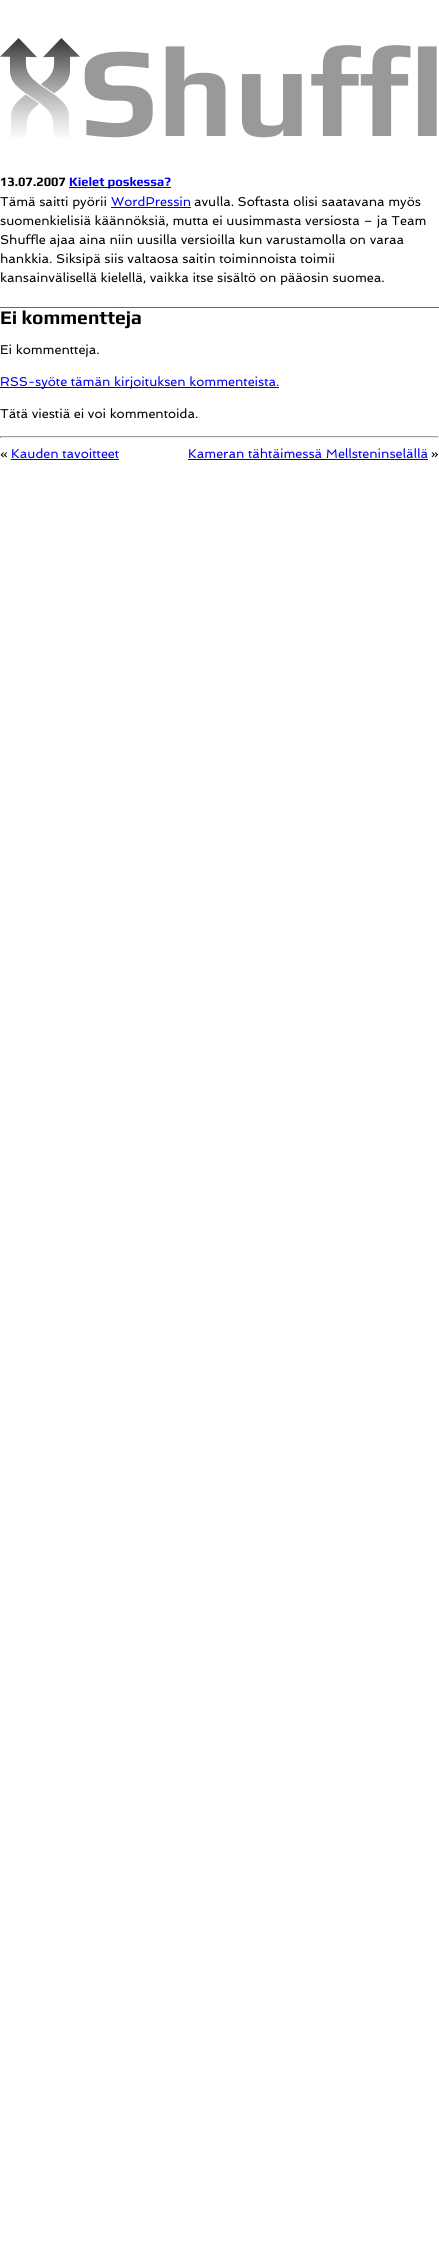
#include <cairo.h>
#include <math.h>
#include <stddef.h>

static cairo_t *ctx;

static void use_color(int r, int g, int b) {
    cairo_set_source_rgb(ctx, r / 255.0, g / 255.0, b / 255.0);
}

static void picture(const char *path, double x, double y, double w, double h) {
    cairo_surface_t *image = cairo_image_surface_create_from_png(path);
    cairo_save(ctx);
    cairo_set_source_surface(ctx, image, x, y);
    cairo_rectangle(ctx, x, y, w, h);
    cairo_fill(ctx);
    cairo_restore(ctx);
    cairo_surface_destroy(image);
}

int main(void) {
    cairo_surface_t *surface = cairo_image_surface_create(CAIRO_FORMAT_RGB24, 439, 2254);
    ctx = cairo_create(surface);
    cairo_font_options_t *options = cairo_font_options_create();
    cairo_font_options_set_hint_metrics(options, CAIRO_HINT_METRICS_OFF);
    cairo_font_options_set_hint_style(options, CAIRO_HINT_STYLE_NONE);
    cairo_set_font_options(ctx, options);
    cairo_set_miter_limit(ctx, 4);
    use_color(255, 255, 255);
    cairo_paint(ctx);
    picture("img1.png", 0, 38, 80, 100);
    cairo_select_font_face(ctx, "Play", CAIRO_FONT_SLANT_NORMAL, CAIRO_FONT_WEIGHT_BOLD);
    cairo_set_font_size(ctx, 128);
    use_color(153, 153, 153);
    cairo_move_to(ctx, 80, 136);
    cairo_show_text(ctx, "Shuffl");
    use_color(102, 102, 102);
    cairo_rectangle(ctx, 0, 307, 439, 1);
    cairo_fill(ctx);
    cairo_set_font_size(ctx, 12.8);
    use_color(0, 0, 0);
    cairo_move_to(ctx, 0, 186);
    cairo_show_text(ctx, "13.07.2007");
    use_color(0, 0, 238);
    cairo_rectangle(ctx, 69, 187, 102, 1);
    cairo_fill(ctx);
    cairo_move_to(ctx, 69, 186);
    cairo_show_text(ctx, "Kielet poskessa?");
    cairo_select_font_face(ctx, "Spinnaker", CAIRO_FONT_SLANT_NORMAL, CAIRO_FONT_WEIGHT_NORMAL);
    use_color(0, 0, 0);
    cairo_move_to(ctx, 0, 206);
    cairo_show_text(ctx, "Tämä saitti pyörii");
    use_color(0, 0, 238);
    cairo_move_to(ctx, 111, 206);
    cairo_show_text(ctx, "WordPressin");
    cairo_rectangle(ctx, 111, 207, 80, 1);
    cairo_fill(ctx);
    use_color(0, 0, 0);
    cairo_move_to(ctx, 194, 206);
    cairo_show_text(ctx, "avulla. Softasta olisi saatavana myös");
    cairo_move_to(ctx, 0, 225);
    cairo_show_text(ctx, "suomenkielisiä käännöksiä, mutta ei uusimmasta versiosta – ja Team");
    cairo_move_to(ctx, 0, 244);
    cairo_show_text(ctx, "Shuffle ajaa aina niin uusilla versioilla kun varustamolla on varaa");
    cairo_move_to(ctx, 0, 263);
    cairo_show_text(ctx, "hankkia. Siksipä siis valtaosa saitin toiminnoista toimii");
    cairo_move_to(ctx, 0, 282);
    cairo_show_text(ctx, "kansainvälisellä kielellä, vaikka itse sisältö on pääosin suomea.");
    cairo_select_font_face(ctx, "Play", CAIRO_FONT_SLANT_NORMAL, CAIRO_FONT_WEIGHT_BOLD);
    cairo_set_font_size(ctx, 19.25);
    cairo_move_to(ctx, 0, 324);
    cairo_show_text(ctx, "Ei kommentteja");
    cairo_select_font_face(ctx, "Spinnaker", CAIRO_FONT_SLANT_NORMAL, CAIRO_FONT_WEIGHT_NORMAL);
    cairo_set_font_size(ctx, 12.8);
    cairo_move_to(ctx, 0, 354);
    cairo_show_text(ctx, "Ei kommentteja.");
    use_color(0, 0, 238);
    cairo_rectangle(ctx, 0, 387, 279, 1);
    cairo_fill(ctx);
    cairo_move_to(ctx, 0, 386);
    cairo_show_text(ctx, "RSS-syöte tämän kirjoituksen kommenteista.");
    use_color(0, 0, 0);
    cairo_move_to(ctx, 0, 418);
    cairo_show_text(ctx, "Tätä viestiä ei voi kommentoida.");
    use_color(159, 159, 159);
    cairo_rectangle(ctx, 0, 436, 439, 1);
    cairo_fill(ctx);
    use_color(238, 238, 238);
    cairo_rectangle(ctx, 438, 436, 1, 2);
    cairo_fill(ctx);
    cairo_rectangle(ctx, 0, 437, 439, 1);
    cairo_fill(ctx);
    use_color(159, 159, 159);
    cairo_rectangle(ctx, 0, 436, 1, 2);
    cairo_fill(ctx);
    use_color(0, 0, 0);
    cairo_move_to(ctx, 0, 458);
    cairo_show_text(ctx, "«");
    use_color(0, 0, 238);
    cairo_move_to(ctx, 11, 458);
    cairo_show_text(ctx, "Kauden tavoitteet");
    cairo_rectangle(ctx, 11, 459, 108, 1);
    cairo_fill(ctx);
    cairo_move_to(ctx, 188, 458);
    cairo_show_text(ctx, "Kameran tähtäimessä Mellsteninselällä");
    cairo_rectangle(ctx, 188, 459, 240, 1);
    cairo_fill(ctx);
    use_color(0, 0, 0);
    cairo_move_to(ctx, 431, 458);
    cairo_show_text(ctx, "»");
    cairo_surface_write_to_png(surface, "result.png");
    cairo_font_options_destroy(options);
    cairo_destroy(ctx);
    cairo_surface_destroy(surface);
    return 0;
}
